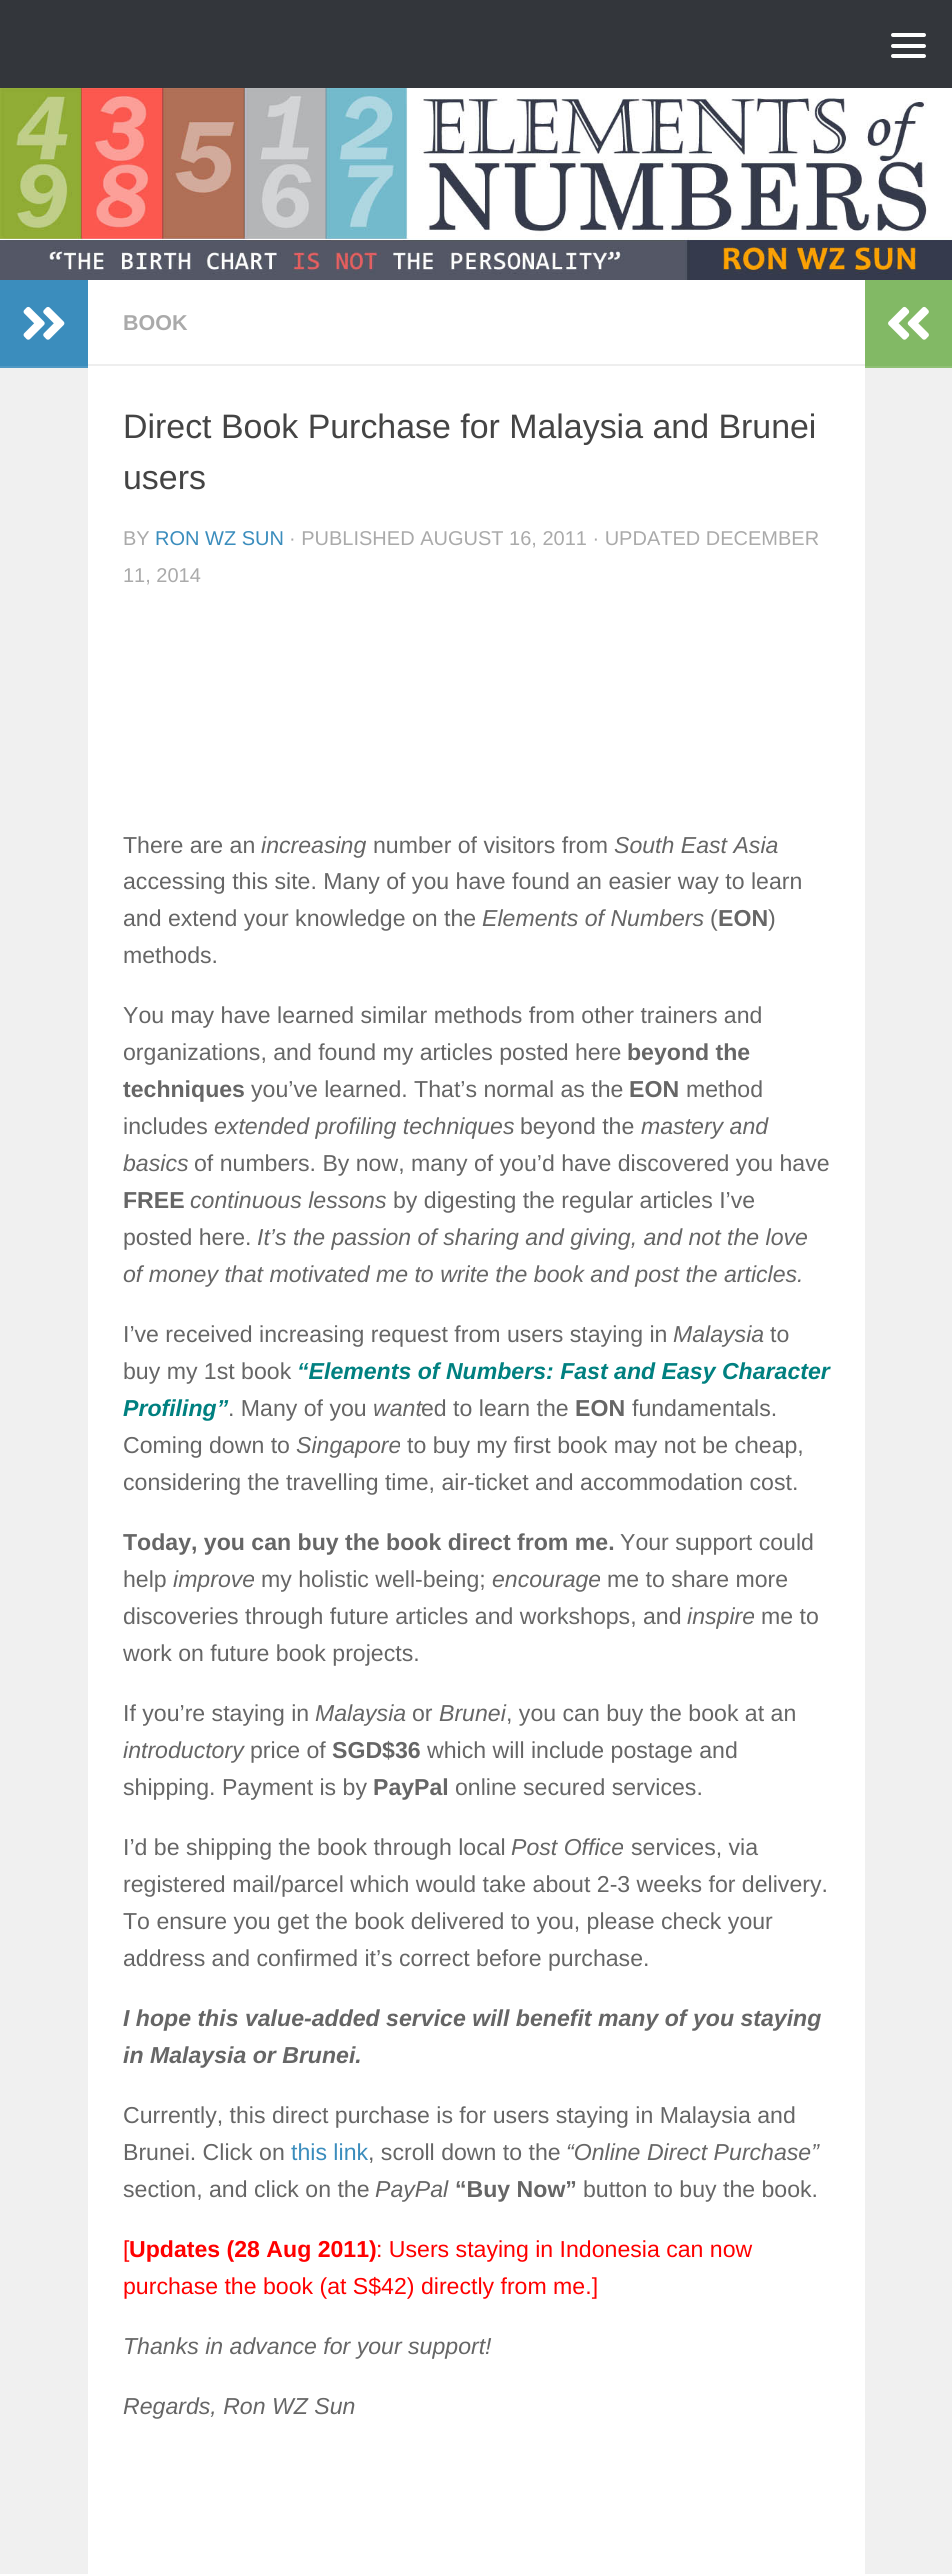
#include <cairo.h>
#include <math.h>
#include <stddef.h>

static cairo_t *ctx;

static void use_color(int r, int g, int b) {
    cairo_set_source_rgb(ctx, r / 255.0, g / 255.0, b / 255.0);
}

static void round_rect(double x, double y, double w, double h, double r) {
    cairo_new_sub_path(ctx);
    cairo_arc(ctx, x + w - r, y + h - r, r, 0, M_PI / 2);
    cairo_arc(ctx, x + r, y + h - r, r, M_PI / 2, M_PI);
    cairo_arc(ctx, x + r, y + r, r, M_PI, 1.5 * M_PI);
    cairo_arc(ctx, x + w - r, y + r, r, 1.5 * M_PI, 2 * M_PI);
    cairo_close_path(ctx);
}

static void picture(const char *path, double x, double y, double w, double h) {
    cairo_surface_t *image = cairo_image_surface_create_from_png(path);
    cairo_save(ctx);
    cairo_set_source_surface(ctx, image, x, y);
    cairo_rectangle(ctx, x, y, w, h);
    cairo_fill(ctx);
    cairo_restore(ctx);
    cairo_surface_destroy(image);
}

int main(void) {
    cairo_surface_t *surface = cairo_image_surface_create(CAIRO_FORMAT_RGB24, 952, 2574);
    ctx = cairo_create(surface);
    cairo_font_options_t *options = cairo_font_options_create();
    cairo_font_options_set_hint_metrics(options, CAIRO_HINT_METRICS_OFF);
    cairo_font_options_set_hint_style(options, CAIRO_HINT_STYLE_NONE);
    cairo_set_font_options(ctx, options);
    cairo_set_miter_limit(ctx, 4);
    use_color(255, 255, 255);
    cairo_paint(ctx);
    use_color(51, 54, 59);
    cairo_rectangle(ctx, 0, 0, 952, 88);
    cairo_fill(ctx);
    use_color(255, 255, 255);
    round_rect(891, 33, 35, 4, 2);
    cairo_fill(ctx);
    round_rect(891, 44, 35, 4, 2);
    cairo_fill(ctx);
    round_rect(891, 54, 35, 4, 2);
    cairo_fill(ctx);
    picture("img1.png", 0, 88, 952, 192);
    use_color(240, 240, 240);
    cairo_rectangle(ctx, 0, 368, 88, 2206);
    cairo_fill(ctx);
    use_color(59, 141, 189);
    cairo_rectangle(ctx, 0, 280, 88, 86);
    cairo_fill(ctx);
    use_color(79, 152, 196);
    cairo_rectangle(ctx, 0, 366, 88, 2);
    cairo_fill(ctx);
    picture("img2.png", 23, 306, 42, 34);
    use_color(238, 238, 238);
    cairo_rectangle(ctx, 88, 364, 777, 2);
    cairo_fill(ctx);
    cairo_select_font_face(ctx, "Liberation Sans", CAIRO_FONT_SLANT_NORMAL, CAIRO_FONT_WEIGHT_BOLD);
    cairo_set_font_size(ctx, 21.5);
    use_color(170, 170, 170);
    cairo_move_to(ctx, 123, 330);
    cairo_show_text(ctx, "BOOK");
    cairo_select_font_face(ctx, "Liberation Sans", CAIRO_FONT_SLANT_NORMAL, CAIRO_FONT_WEIGHT_NORMAL);
    cairo_set_font_size(ctx, 33.9);
    use_color(68, 68, 68);
    cairo_move_to(ctx, 123, 438);
    cairo_show_text(ctx, "Direct Book Purchase for Malaysia and Brunei");
    cairo_move_to(ctx, 123, 489);
    cairo_show_text(ctx, "users");
    cairo_set_font_size(ctx, 20);
    use_color(170, 170, 170);
    cairo_move_to(ctx, 123, 545);
    cairo_show_text(ctx, "BY");
    use_color(59, 141, 189);
    cairo_move_to(ctx, 155, 545);
    cairo_show_text(ctx, "RON WZ SUN");
    use_color(170, 170, 170);
    cairo_move_to(ctx, 289, 545);
    cairo_show_text(ctx, "· PUBLISHED AUGUST 16, 2011 · UPDATED DECEMBER");
    cairo_move_to(ctx, 123, 582);
    cairo_show_text(ctx, "11, 2014");
    cairo_set_font_size(ctx, 23.1);
    use_color(102, 102, 102);
    cairo_move_to(ctx, 123, 853);
    cairo_show_text(ctx, "There are an");
    cairo_select_font_face(ctx, "Liberation Sans", CAIRO_FONT_SLANT_ITALIC, CAIRO_FONT_WEIGHT_NORMAL);
    cairo_move_to(ctx, 261, 853);
    cairo_show_text(ctx, "increasing");
    cairo_select_font_face(ctx, "Liberation Sans", CAIRO_FONT_SLANT_NORMAL, CAIRO_FONT_WEIGHT_NORMAL);
    cairo_move_to(ctx, 373, 853);
    cairo_show_text(ctx, "number of visitors from");
    cairo_select_font_face(ctx, "Liberation Sans", CAIRO_FONT_SLANT_ITALIC, CAIRO_FONT_WEIGHT_NORMAL);
    cairo_move_to(ctx, 614, 853);
    cairo_show_text(ctx, "South East Asia");
    cairo_select_font_face(ctx, "Liberation Sans", CAIRO_FONT_SLANT_NORMAL, CAIRO_FONT_WEIGHT_NORMAL);
    cairo_move_to(ctx, 123, 889);
    cairo_show_text(ctx, "accessing this site. Many of you have found an easier way to learn");
    cairo_move_to(ctx, 123, 926);
    cairo_show_text(ctx, "and extend your knowledge on the");
    cairo_select_font_face(ctx, "Liberation Sans", CAIRO_FONT_SLANT_ITALIC, CAIRO_FONT_WEIGHT_NORMAL);
    cairo_move_to(ctx, 482, 926);
    cairo_show_text(ctx, "Elements of Numbers");
    cairo_select_font_face(ctx, "Liberation Sans", CAIRO_FONT_SLANT_NORMAL, CAIRO_FONT_WEIGHT_NORMAL);
    cairo_move_to(ctx, 710, 926);
    cairo_show_text(ctx, "(");
    cairo_select_font_face(ctx, "Liberation Sans", CAIRO_FONT_SLANT_NORMAL, CAIRO_FONT_WEIGHT_BOLD);
    cairo_move_to(ctx, 718, 926);
    cairo_show_text(ctx, "EON");
    cairo_select_font_face(ctx, "Liberation Sans", CAIRO_FONT_SLANT_NORMAL, CAIRO_FONT_WEIGHT_NORMAL);
    cairo_move_to(ctx, 768, 926);
    cairo_show_text(ctx, ")");
    cairo_move_to(ctx, 123, 963);
    cairo_show_text(ctx, "methods.");
    cairo_move_to(ctx, 123, 1023);
    cairo_show_text(ctx, "You may have learned similar methods from other trainers and");
    cairo_move_to(ctx, 123, 1060);
    cairo_show_text(ctx, "organizations, and found my articles posted here");
    cairo_select_font_face(ctx, "Liberation Sans", CAIRO_FONT_SLANT_NORMAL, CAIRO_FONT_WEIGHT_BOLD);
    cairo_move_to(ctx, 627, 1060);
    cairo_show_text(ctx, "beyond the");
    cairo_move_to(ctx, 123, 1097);
    cairo_show_text(ctx, "techniques");
    cairo_select_font_face(ctx, "Liberation Sans", CAIRO_FONT_SLANT_NORMAL, CAIRO_FONT_WEIGHT_NORMAL);
    cairo_move_to(ctx, 251, 1097);
    cairo_show_text(ctx, "you’ve learned. That’s normal as the");
    cairo_select_font_face(ctx, "Liberation Sans", CAIRO_FONT_SLANT_NORMAL, CAIRO_FONT_WEIGHT_BOLD);
    cairo_move_to(ctx, 629, 1097);
    cairo_show_text(ctx, "EON");
    cairo_select_font_face(ctx, "Liberation Sans", CAIRO_FONT_SLANT_NORMAL, CAIRO_FONT_WEIGHT_NORMAL);
    cairo_move_to(ctx, 686, 1097);
    cairo_show_text(ctx, "method");
    cairo_move_to(ctx, 123, 1134);
    cairo_show_text(ctx, "includes");
    cairo_select_font_face(ctx, "Liberation Sans", CAIRO_FONT_SLANT_ITALIC, CAIRO_FONT_WEIGHT_NORMAL);
    cairo_move_to(ctx, 214, 1134);
    cairo_show_text(ctx, "extended profiling techniques");
    cairo_select_font_face(ctx, "Liberation Sans", CAIRO_FONT_SLANT_NORMAL, CAIRO_FONT_WEIGHT_NORMAL);
    cairo_move_to(ctx, 520, 1134);
    cairo_show_text(ctx, "beyond the");
    cairo_select_font_face(ctx, "Liberation Sans", CAIRO_FONT_SLANT_ITALIC, CAIRO_FONT_WEIGHT_NORMAL);
    cairo_move_to(ctx, 641, 1134);
    cairo_show_text(ctx, "mastery and");
    cairo_move_to(ctx, 123, 1171);
    cairo_show_text(ctx, "basics");
    cairo_select_font_face(ctx, "Liberation Sans", CAIRO_FONT_SLANT_NORMAL, CAIRO_FONT_WEIGHT_NORMAL);
    cairo_move_to(ctx, 194, 1171);
    cairo_show_text(ctx, "of numbers. By now, many of you’d have discovered you have");
    cairo_select_font_face(ctx, "Liberation Sans", CAIRO_FONT_SLANT_NORMAL, CAIRO_FONT_WEIGHT_BOLD);
    cairo_move_to(ctx, 123, 1208);
    cairo_show_text(ctx, "FREE");
    cairo_select_font_face(ctx, "Liberation Sans", CAIRO_FONT_SLANT_ITALIC, CAIRO_FONT_WEIGHT_NORMAL);
    cairo_move_to(ctx, 190, 1208);
    cairo_show_text(ctx, "continuous lessons");
    cairo_select_font_face(ctx, "Liberation Sans", CAIRO_FONT_SLANT_NORMAL, CAIRO_FONT_WEIGHT_NORMAL);
    cairo_move_to(ctx, 393, 1208);
    cairo_show_text(ctx, "by digesting the regular articles I’ve");
    cairo_move_to(ctx, 123, 1245);
    cairo_show_text(ctx, "posted here.");
    cairo_select_font_face(ctx, "Liberation Sans", CAIRO_FONT_SLANT_ITALIC, CAIRO_FONT_WEIGHT_NORMAL);
    cairo_move_to(ctx, 257, 1245);
    cairo_show_text(ctx, "It’s the passion of sharing and giving, and not the love");
    cairo_move_to(ctx, 123, 1282);
    cairo_show_text(ctx, "of money that motivated me to write the book and post the articles.");
    cairo_select_font_face(ctx, "Liberation Sans", CAIRO_FONT_SLANT_NORMAL, CAIRO_FONT_WEIGHT_NORMAL);
    cairo_move_to(ctx, 123, 1342);
    cairo_show_text(ctx, "I’ve received increasing request from users staying in");
    cairo_select_font_face(ctx, "Liberation Sans", CAIRO_FONT_SLANT_ITALIC, CAIRO_FONT_WEIGHT_NORMAL);
    cairo_move_to(ctx, 673, 1342);
    cairo_show_text(ctx, "Malaysia");
    cairo_select_font_face(ctx, "Liberation Sans", CAIRO_FONT_SLANT_NORMAL, CAIRO_FONT_WEIGHT_NORMAL);
    cairo_move_to(ctx, 770, 1342);
    cairo_show_text(ctx, "to");
    cairo_move_to(ctx, 123, 1379);
    cairo_show_text(ctx, "buy my 1st book");
    cairo_select_font_face(ctx, "Liberation Sans", CAIRO_FONT_SLANT_ITALIC, CAIRO_FONT_WEIGHT_BOLD);
    use_color(0, 128, 128);
    cairo_move_to(ctx, 297, 1379);
    cairo_show_text(ctx, "“Elements of Numbers: Fast and Easy Character");
    cairo_move_to(ctx, 123, 1416);
    cairo_show_text(ctx, "Profiling”");
    cairo_select_font_face(ctx, "Liberation Sans", CAIRO_FONT_SLANT_NORMAL, CAIRO_FONT_WEIGHT_NORMAL);
    use_color(102, 102, 102);
    cairo_move_to(ctx, 228, 1416);
    cairo_show_text(ctx, ". Many of you");
    cairo_select_font_face(ctx, "Liberation Sans", CAIRO_FONT_SLANT_ITALIC, CAIRO_FONT_WEIGHT_NORMAL);
    cairo_move_to(ctx, 373, 1416);
    cairo_show_text(ctx, "want");
    cairo_select_font_face(ctx, "Liberation Sans", CAIRO_FONT_SLANT_NORMAL, CAIRO_FONT_WEIGHT_NORMAL);
    cairo_move_to(ctx, 421, 1416);
    cairo_show_text(ctx, "ed to learn the");
    cairo_select_font_face(ctx, "Liberation Sans", CAIRO_FONT_SLANT_NORMAL, CAIRO_FONT_WEIGHT_BOLD);
    cairo_move_to(ctx, 575, 1416);
    cairo_show_text(ctx, "EON");
    cairo_select_font_face(ctx, "Liberation Sans", CAIRO_FONT_SLANT_NORMAL, CAIRO_FONT_WEIGHT_NORMAL);
    cairo_move_to(ctx, 632, 1416);
    cairo_show_text(ctx, "fundamentals.");
    cairo_move_to(ctx, 123, 1453);
    cairo_show_text(ctx, "Coming down to");
    cairo_select_font_face(ctx, "Liberation Sans", CAIRO_FONT_SLANT_ITALIC, CAIRO_FONT_WEIGHT_NORMAL);
    cairo_move_to(ctx, 296, 1453);
    cairo_show_text(ctx, "Singapore");
    cairo_select_font_face(ctx, "Liberation Sans", CAIRO_FONT_SLANT_NORMAL, CAIRO_FONT_WEIGHT_NORMAL);
    cairo_move_to(ctx, 407, 1453);
    cairo_show_text(ctx, "to buy my first book may not be cheap,");
    cairo_move_to(ctx, 123, 1490);
    cairo_show_text(ctx, "considering the travelling time, air-ticket and accommodation cost.");
    cairo_select_font_face(ctx, "Liberation Sans", CAIRO_FONT_SLANT_NORMAL, CAIRO_FONT_WEIGHT_BOLD);
    cairo_move_to(ctx, 123, 1550);
    cairo_show_text(ctx, "Today, you can buy the book direct from me.");
    cairo_select_font_face(ctx, "Liberation Sans", CAIRO_FONT_SLANT_NORMAL, CAIRO_FONT_WEIGHT_NORMAL);
    cairo_move_to(ctx, 620, 1550);
    cairo_show_text(ctx, "Your support could");
    cairo_move_to(ctx, 123, 1587);
    cairo_show_text(ctx, "help");
    cairo_select_font_face(ctx, "Liberation Sans", CAIRO_FONT_SLANT_ITALIC, CAIRO_FONT_WEIGHT_NORMAL);
    cairo_move_to(ctx, 173, 1587);
    cairo_show_text(ctx, "improve");
    cairo_select_font_face(ctx, "Liberation Sans", CAIRO_FONT_SLANT_NORMAL, CAIRO_FONT_WEIGHT_NORMAL);
    cairo_move_to(ctx, 261, 1587);
    cairo_show_text(ctx, "my holistic well-being;");
    cairo_select_font_face(ctx, "Liberation Sans", CAIRO_FONT_SLANT_ITALIC, CAIRO_FONT_WEIGHT_NORMAL);
    cairo_move_to(ctx, 492, 1587);
    cairo_show_text(ctx, "encourage");
    cairo_select_font_face(ctx, "Liberation Sans", CAIRO_FONT_SLANT_NORMAL, CAIRO_FONT_WEIGHT_NORMAL);
    cairo_move_to(ctx, 607, 1587);
    cairo_show_text(ctx, "me to share more");
    cairo_move_to(ctx, 123, 1624);
    cairo_show_text(ctx, "discoveries through future articles and workshops, and");
    cairo_select_font_face(ctx, "Liberation Sans", CAIRO_FONT_SLANT_ITALIC, CAIRO_FONT_WEIGHT_NORMAL);
    cairo_move_to(ctx, 687, 1624);
    cairo_show_text(ctx, "inspire");
    cairo_select_font_face(ctx, "Liberation Sans", CAIRO_FONT_SLANT_NORMAL, CAIRO_FONT_WEIGHT_NORMAL);
    cairo_move_to(ctx, 761, 1624);
    cairo_show_text(ctx, "me to");
    cairo_move_to(ctx, 123, 1661);
    cairo_show_text(ctx, "work on future book projects.");
    cairo_move_to(ctx, 123, 1721);
    cairo_show_text(ctx, "If you’re staying in");
    cairo_select_font_face(ctx, "Liberation Sans", CAIRO_FONT_SLANT_ITALIC, CAIRO_FONT_WEIGHT_NORMAL);
    cairo_move_to(ctx, 315, 1721);
    cairo_show_text(ctx, "Malaysia");
    cairo_select_font_face(ctx, "Liberation Sans", CAIRO_FONT_SLANT_NORMAL, CAIRO_FONT_WEIGHT_NORMAL);
    cairo_move_to(ctx, 412, 1721);
    cairo_show_text(ctx, "or");
    cairo_select_font_face(ctx, "Liberation Sans", CAIRO_FONT_SLANT_ITALIC, CAIRO_FONT_WEIGHT_NORMAL);
    cairo_move_to(ctx, 439, 1721);
    cairo_show_text(ctx, "Brunei");
    cairo_select_font_face(ctx, "Liberation Sans", CAIRO_FONT_SLANT_NORMAL, CAIRO_FONT_WEIGHT_NORMAL);
    cairo_move_to(ctx, 506, 1721);
    cairo_show_text(ctx, ", you can buy the book at an");
    cairo_select_font_face(ctx, "Liberation Sans", CAIRO_FONT_SLANT_ITALIC, CAIRO_FONT_WEIGHT_NORMAL);
    cairo_move_to(ctx, 123, 1758);
    cairo_show_text(ctx, "introductory");
    cairo_select_font_face(ctx, "Liberation Sans", CAIRO_FONT_SLANT_NORMAL, CAIRO_FONT_WEIGHT_NORMAL);
    cairo_move_to(ctx, 250, 1758);
    cairo_show_text(ctx, "price of");
    cairo_select_font_face(ctx, "Liberation Sans", CAIRO_FONT_SLANT_NORMAL, CAIRO_FONT_WEIGHT_BOLD);
    cairo_move_to(ctx, 332, 1758);
    cairo_show_text(ctx, "SGD$36");
    cairo_select_font_face(ctx, "Liberation Sans", CAIRO_FONT_SLANT_NORMAL, CAIRO_FONT_WEIGHT_NORMAL);
    cairo_move_to(ctx, 427, 1758);
    cairo_show_text(ctx, "which will include postage and");
    cairo_move_to(ctx, 123, 1795);
    cairo_show_text(ctx, "shipping. Payment is by");
    cairo_select_font_face(ctx, "Liberation Sans", CAIRO_FONT_SLANT_NORMAL, CAIRO_FONT_WEIGHT_BOLD);
    cairo_move_to(ctx, 373, 1795);
    cairo_show_text(ctx, "PayPal");
    cairo_select_font_face(ctx, "Liberation Sans", CAIRO_FONT_SLANT_NORMAL, CAIRO_FONT_WEIGHT_NORMAL);
    cairo_move_to(ctx, 455, 1795);
    cairo_show_text(ctx, "online secured services.");
    cairo_move_to(ctx, 123, 1855);
    cairo_show_text(ctx, "I’d be shipping the book through local");
    cairo_select_font_face(ctx, "Liberation Sans", CAIRO_FONT_SLANT_ITALIC, CAIRO_FONT_WEIGHT_NORMAL);
    cairo_move_to(ctx, 511, 1855);
    cairo_show_text(ctx, "Post Office");
    cairo_select_font_face(ctx, "Liberation Sans", CAIRO_FONT_SLANT_NORMAL, CAIRO_FONT_WEIGHT_NORMAL);
    cairo_move_to(ctx, 631, 1855);
    cairo_show_text(ctx, "services, via");
    cairo_move_to(ctx, 123, 1892);
    cairo_show_text(ctx, "registered mail/parcel which would take about 2-3 weeks for delivery.");
    cairo_move_to(ctx, 123, 1929);
    cairo_show_text(ctx, "To ensure you get the book delivered to you, please check your");
    cairo_move_to(ctx, 123, 1966);
    cairo_show_text(ctx, "address and confirmed it’s correct before purchase.");
    cairo_select_font_face(ctx, "Liberation Sans", CAIRO_FONT_SLANT_ITALIC, CAIRO_FONT_WEIGHT_BOLD);
    cairo_move_to(ctx, 123, 2026);
    cairo_show_text(ctx, "I hope this value-added service will benefit many of you staying");
    cairo_move_to(ctx, 123, 2063);
    cairo_show_text(ctx, "in Malaysia or Brunei.");
    cairo_select_font_face(ctx, "Liberation Sans", CAIRO_FONT_SLANT_NORMAL, CAIRO_FONT_WEIGHT_NORMAL);
    cairo_move_to(ctx, 123, 2123);
    cairo_show_text(ctx, "Currently, this direct purchase is for users staying in Malaysia and");
    cairo_move_to(ctx, 123, 2160);
    cairo_show_text(ctx, "Brunei. Click on");
    use_color(59, 141, 189);
    cairo_move_to(ctx, 291, 2160);
    cairo_show_text(ctx, "this link");
    use_color(102, 102, 102);
    cairo_move_to(ctx, 368, 2160);
    cairo_show_text(ctx, ", scroll down to the");
    cairo_select_font_face(ctx, "Liberation Sans", CAIRO_FONT_SLANT_ITALIC, CAIRO_FONT_WEIGHT_NORMAL);
    cairo_move_to(ctx, 566, 2160);
    cairo_show_text(ctx, "“Online Direct Purchase”");
    cairo_select_font_face(ctx, "Liberation Sans", CAIRO_FONT_SLANT_NORMAL, CAIRO_FONT_WEIGHT_NORMAL);
    cairo_move_to(ctx, 123, 2197);
    cairo_show_text(ctx, "section, and click on the");
    cairo_select_font_face(ctx, "Liberation Sans", CAIRO_FONT_SLANT_ITALIC, CAIRO_FONT_WEIGHT_NORMAL);
    cairo_move_to(ctx, 375, 2197);
    cairo_show_text(ctx, "PayPal");
    cairo_select_font_face(ctx, "Liberation Sans", CAIRO_FONT_SLANT_NORMAL, CAIRO_FONT_WEIGHT_BOLD);
    cairo_move_to(ctx, 455, 2197);
    cairo_show_text(ctx, "“Buy Now”");
    cairo_select_font_face(ctx, "Liberation Sans", CAIRO_FONT_SLANT_NORMAL, CAIRO_FONT_WEIGHT_NORMAL);
    cairo_move_to(ctx, 583, 2197);
    cairo_show_text(ctx, "button to buy the book.");
    use_color(255, 0, 0);
    cairo_move_to(ctx, 123, 2257);
    cairo_show_text(ctx, "[");
    cairo_select_font_face(ctx, "Liberation Sans", CAIRO_FONT_SLANT_NORMAL, CAIRO_FONT_WEIGHT_BOLD);
    cairo_move_to(ctx, 129, 2257);
    cairo_show_text(ctx, "Updates (28 Aug 2011)");
    cairo_select_font_face(ctx, "Liberation Sans", CAIRO_FONT_SLANT_NORMAL, CAIRO_FONT_WEIGHT_NORMAL);
    cairo_move_to(ctx, 376, 2257);
    cairo_show_text(ctx, ": Users staying in Indonesia can now");
    cairo_move_to(ctx, 123, 2294);
    cairo_show_text(ctx, "purchase the book (at S$42) directly from me.]");
    cairo_select_font_face(ctx, "Liberation Sans", CAIRO_FONT_SLANT_ITALIC, CAIRO_FONT_WEIGHT_NORMAL);
    use_color(102, 102, 102);
    cairo_move_to(ctx, 123, 2354);
    cairo_show_text(ctx, "Thanks in advance for your support!");
    cairo_move_to(ctx, 123, 2414);
    cairo_show_text(ctx, "Regards, Ron WZ Sun");
    use_color(130, 185, 101);
    cairo_rectangle(ctx, 865, 280, 87, 86);
    cairo_fill(ctx);
    use_color(143, 192, 116);
    cairo_rectangle(ctx, 865, 366, 87, 2);
    cairo_fill(ctx);
    picture("img3.png", 888, 306, 41, 34);
    use_color(240, 240, 240);
    cairo_rectangle(ctx, 865, 368, 87, 2206);
    cairo_fill(ctx);
    cairo_surface_write_to_png(surface, "result.png");
    cairo_font_options_destroy(options);
    cairo_destroy(ctx);
    cairo_surface_destroy(surface);
    return 0;
}
